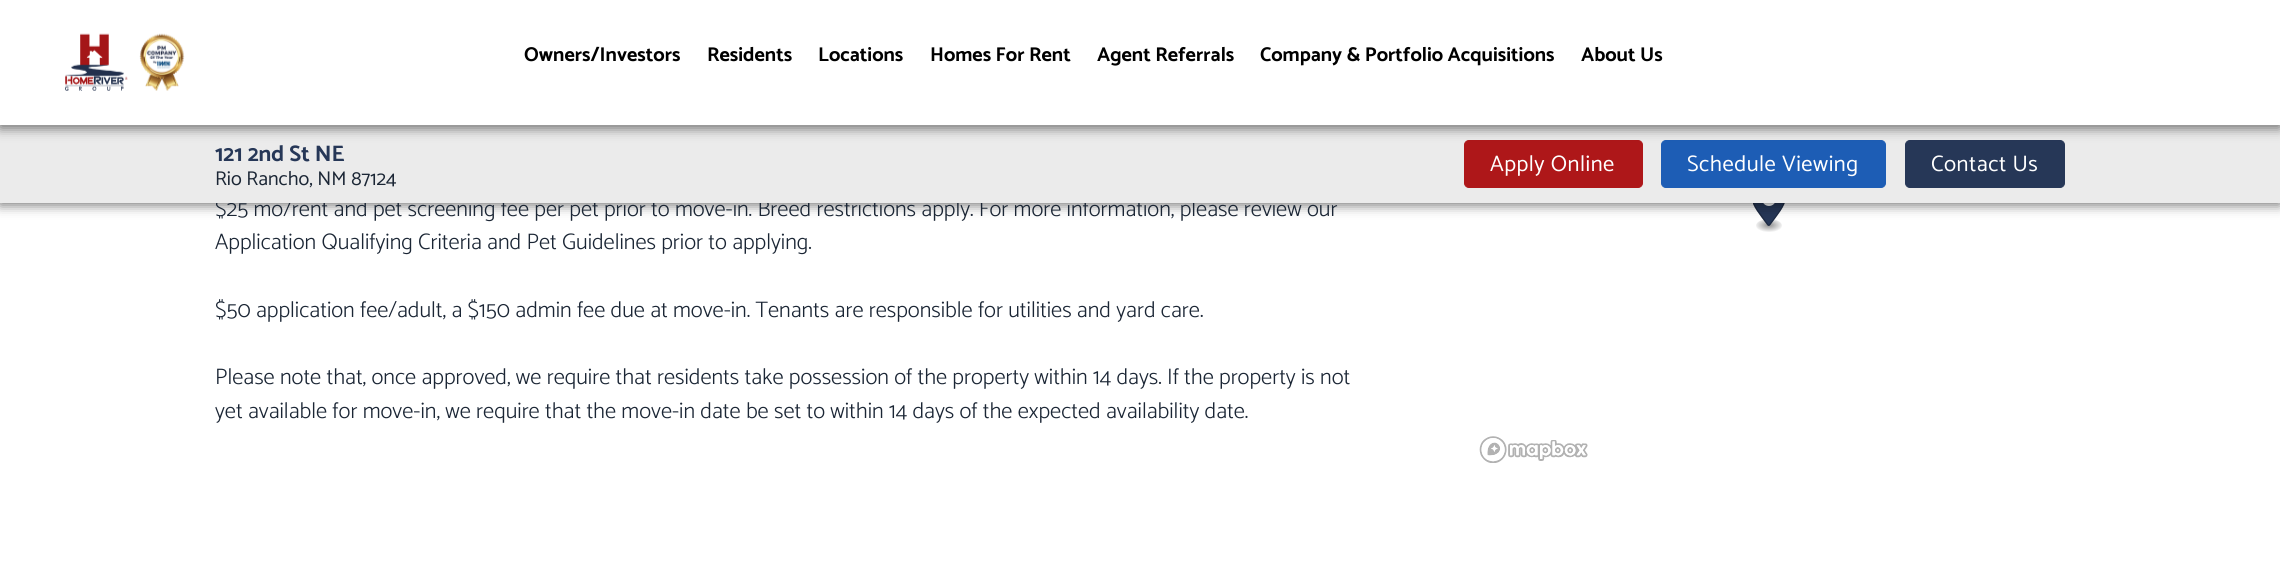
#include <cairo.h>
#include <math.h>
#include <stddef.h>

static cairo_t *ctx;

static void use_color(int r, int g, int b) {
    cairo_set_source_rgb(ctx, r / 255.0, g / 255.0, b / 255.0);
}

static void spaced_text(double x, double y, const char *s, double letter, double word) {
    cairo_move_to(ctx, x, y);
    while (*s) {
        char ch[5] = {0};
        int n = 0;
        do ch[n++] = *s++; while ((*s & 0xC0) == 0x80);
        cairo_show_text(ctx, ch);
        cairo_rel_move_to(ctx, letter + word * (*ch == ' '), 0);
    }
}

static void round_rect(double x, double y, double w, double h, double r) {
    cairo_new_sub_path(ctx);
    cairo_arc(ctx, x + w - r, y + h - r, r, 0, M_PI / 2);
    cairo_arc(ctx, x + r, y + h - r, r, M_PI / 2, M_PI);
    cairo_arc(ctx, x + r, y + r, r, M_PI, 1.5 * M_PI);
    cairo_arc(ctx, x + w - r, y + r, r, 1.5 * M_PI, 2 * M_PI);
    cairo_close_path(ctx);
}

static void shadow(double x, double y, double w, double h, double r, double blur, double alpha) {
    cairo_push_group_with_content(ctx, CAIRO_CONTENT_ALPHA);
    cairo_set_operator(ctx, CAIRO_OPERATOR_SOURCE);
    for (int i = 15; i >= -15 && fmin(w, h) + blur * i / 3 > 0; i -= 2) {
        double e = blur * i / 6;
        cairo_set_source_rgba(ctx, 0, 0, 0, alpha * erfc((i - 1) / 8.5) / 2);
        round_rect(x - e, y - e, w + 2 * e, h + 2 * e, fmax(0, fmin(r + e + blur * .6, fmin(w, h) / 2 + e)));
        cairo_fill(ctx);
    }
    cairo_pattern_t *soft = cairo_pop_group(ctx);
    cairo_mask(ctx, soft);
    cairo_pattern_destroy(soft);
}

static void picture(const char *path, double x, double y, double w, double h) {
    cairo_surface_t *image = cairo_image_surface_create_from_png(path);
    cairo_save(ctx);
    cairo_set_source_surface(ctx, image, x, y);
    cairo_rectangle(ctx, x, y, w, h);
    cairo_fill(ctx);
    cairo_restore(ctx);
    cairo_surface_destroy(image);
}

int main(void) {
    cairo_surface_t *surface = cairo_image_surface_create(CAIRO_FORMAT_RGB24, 2280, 563);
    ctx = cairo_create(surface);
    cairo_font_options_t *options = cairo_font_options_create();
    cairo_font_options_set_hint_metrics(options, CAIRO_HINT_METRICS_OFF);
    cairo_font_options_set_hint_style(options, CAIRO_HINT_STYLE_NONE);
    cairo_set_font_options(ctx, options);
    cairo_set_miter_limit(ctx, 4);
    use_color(255, 255, 255);
    cairo_paint(ctx);
    picture("img3.png", 1753, 203, 32, 29);
    use_color(0, 0, 0);
    shadow(0, 128, 2280, 77, 0, 6, 0.55);
    cairo_select_font_face(ctx, "Catamaran Light", CAIRO_FONT_SLANT_NORMAL, CAIRO_FONT_WEIGHT_NORMAL);
    cairo_set_font_size(ctx, 22.5);
    use_color(27, 38, 53);
    cairo_move_to(ctx, 215, 216);
    cairo_show_text(ctx, "$25 mo/rent and pet screening fee per pet prior to move-in. Breed restrictions apply. For more information, please review our");
    use_color(235, 235, 235);
    cairo_rectangle(ctx, 0, 125, 2280, 78);
    cairo_fill(ctx);
    use_color(174, 23, 25);
    round_rect(1464.5, 140.5, 178, 47, 4.5);
    cairo_fill_preserve(ctx);
    cairo_set_line_width(ctx, 1);
    cairo_stroke(ctx);
    use_color(29, 93, 181);
    round_rect(1661.5, 140.5, 224, 47, 4.5);
    cairo_fill_preserve(ctx);
    cairo_stroke(ctx);
    use_color(38, 55, 87);
    round_rect(1905.5, 140.5, 159, 47, 4.5);
    cairo_fill_preserve(ctx);
    cairo_stroke(ctx);
    use_color(0, 0, 0);
    shadow(0, 3, 2280, 125, 0, 6, 0.55);
    use_color(255, 255, 255);
    cairo_rectangle(ctx, 0, 0, 2280, 125);
    cairo_fill(ctx);
    picture("img1.png", 65, 33, 63, 58);
    picture("img2.png", 139, 33, 46, 58);
    cairo_select_font_face(ctx, "Catamaran", CAIRO_FONT_SLANT_NORMAL, CAIRO_FONT_WEIGHT_BOLD);
    cairo_set_font_size(ctx, 20);
    use_color(0, 0, 0);
    cairo_move_to(ctx, 524, 61);
    cairo_show_text(ctx, "Owners/Investors");
    cairo_move_to(ctx, 707, 61);
    cairo_show_text(ctx, "Residents");
    cairo_move_to(ctx, 818, 61);
    cairo_show_text(ctx, "Locations");
    cairo_move_to(ctx, 930, 61);
    cairo_show_text(ctx, "Homes For Rent");
    cairo_move_to(ctx, 1097, 61);
    cairo_show_text(ctx, "Agent Referrals");
    cairo_move_to(ctx, 1260, 61);
    cairo_show_text(ctx, "Company & Portfolio Acquisitions");
    cairo_move_to(ctx, 1581, 61);
    cairo_show_text(ctx, "About Us");
    cairo_set_font_size(ctx, 22.5);
    use_color(38, 55, 87);
    cairo_move_to(ctx, 215, 161);
    cairo_show_text(ctx, "121 2nd St NE");
    cairo_select_font_face(ctx, "Catamaran", CAIRO_FONT_SLANT_NORMAL, CAIRO_FONT_WEIGHT_NORMAL);
    cairo_set_font_size(ctx, 20);
    use_color(27, 38, 53);
    cairo_move_to(ctx, 215, 185);
    cairo_show_text(ctx, "Rio Rancho, NM 87124");
    cairo_set_font_size(ctx, 22.5);
    use_color(255, 255, 255);
    spaced_text(1490, 171, "Apply Online", 0.5, 0);
    spaced_text(1687, 171, "Schedule Viewing", 0.5, 0);
    spaced_text(1931, 171, "Contact Us", 0.5, 0);
    cairo_select_font_face(ctx, "Catamaran Light", CAIRO_FONT_SLANT_NORMAL, CAIRO_FONT_WEIGHT_NORMAL);
    use_color(27, 38, 53);
    cairo_move_to(ctx, 215, 249);
    cairo_show_text(ctx, "Application Qualifying Criteria and Pet Guidelines prior to applying.");
    cairo_move_to(ctx, 215, 317);
    cairo_show_text(ctx, "$50 application fee/adult, a $150 admin fee due at move-in. Tenants are responsible for utilities and yard care.");
    cairo_move_to(ctx, 215, 384);
    cairo_show_text(ctx, "Please note that, once approved, we require that residents take possession of the property within 14 days. If the property is not");
    cairo_move_to(ctx, 215, 418);
    cairo_show_text(ctx, "yet available for move-in, we require that the move-in date be set to within 14 days of the expected availability date.");
    picture("img4.png", 1479, 436, 109, 27);
    cairo_surface_write_to_png(surface, "result.png");
    cairo_font_options_destroy(options);
    cairo_destroy(ctx);
    cairo_surface_destroy(surface);
    return 0;
}
